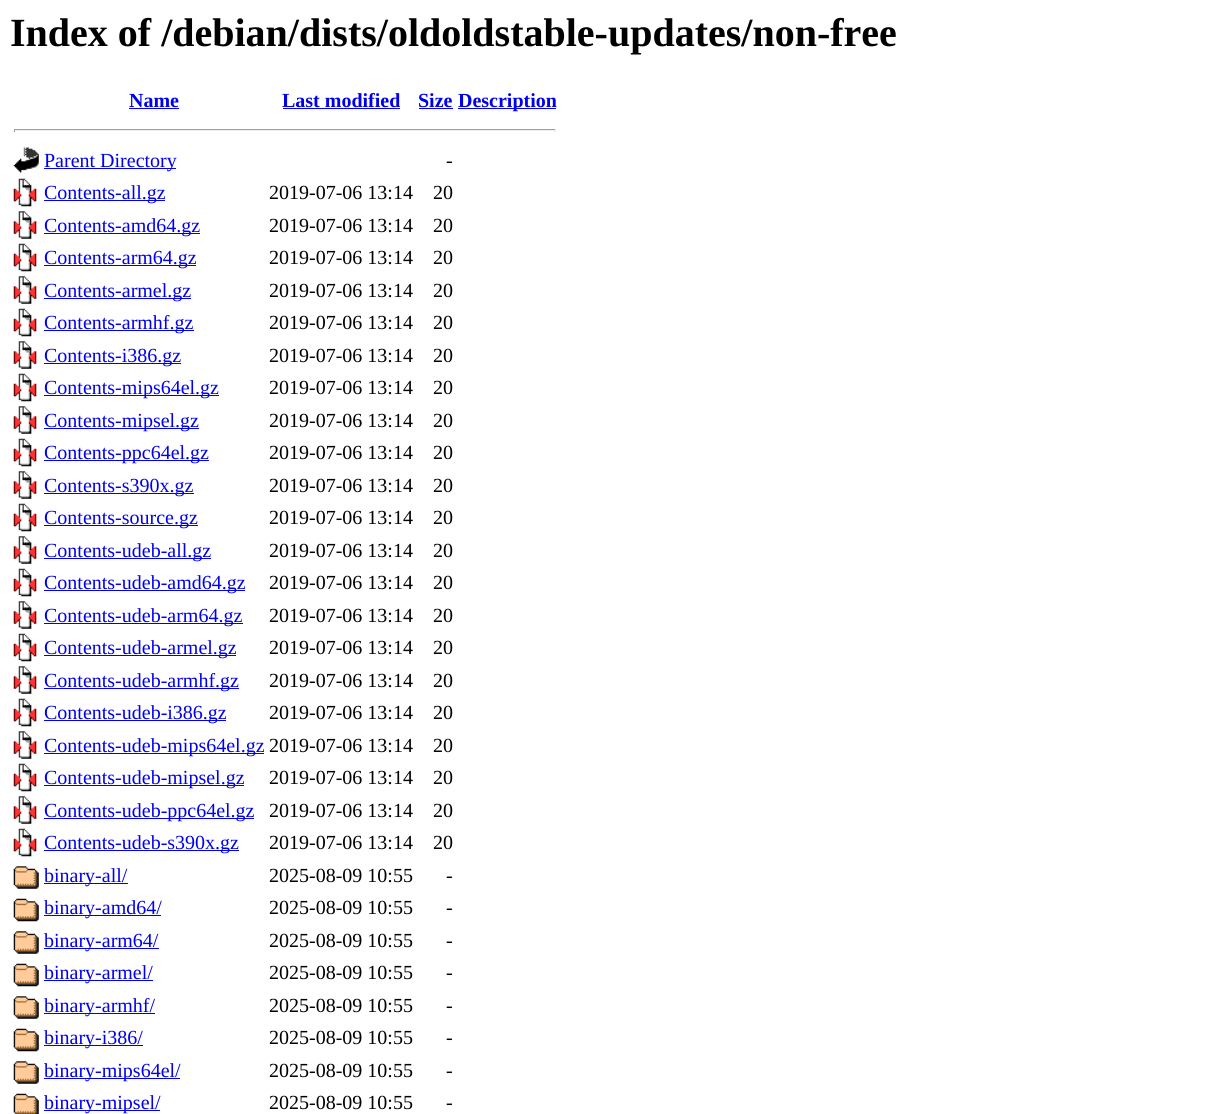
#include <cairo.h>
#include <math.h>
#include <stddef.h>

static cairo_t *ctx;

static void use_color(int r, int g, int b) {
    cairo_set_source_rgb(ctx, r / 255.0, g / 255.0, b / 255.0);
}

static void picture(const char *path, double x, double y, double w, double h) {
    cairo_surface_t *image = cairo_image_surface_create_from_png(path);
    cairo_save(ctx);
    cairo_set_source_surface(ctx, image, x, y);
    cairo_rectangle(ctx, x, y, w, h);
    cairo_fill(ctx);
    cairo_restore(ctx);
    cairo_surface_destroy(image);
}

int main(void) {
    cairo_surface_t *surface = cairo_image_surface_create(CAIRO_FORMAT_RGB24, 1230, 1114);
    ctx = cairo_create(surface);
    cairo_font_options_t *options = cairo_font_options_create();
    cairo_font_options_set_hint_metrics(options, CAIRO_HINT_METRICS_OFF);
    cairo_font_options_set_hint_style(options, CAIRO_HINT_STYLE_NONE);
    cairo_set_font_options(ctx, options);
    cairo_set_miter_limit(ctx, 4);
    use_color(255, 255, 255);
    cairo_paint(ctx);
    cairo_select_font_face(ctx, "Liberation Serif", CAIRO_FONT_SLANT_NORMAL, CAIRO_FONT_WEIGHT_BOLD);
    cairo_set_font_size(ctx, 40);
    use_color(0, 0, 0);
    cairo_move_to(ctx, 10, 46);
    cairo_show_text(ctx, "Index of /debian/dists/oldoldstable-updates/non-free");
    cairo_set_font_size(ctx, 20);
    use_color(0, 0, 238);
    cairo_move_to(ctx, 129, 107);
    cairo_show_text(ctx, "Name");
    cairo_rectangle(ctx, 129, 108, 50, 1);
    cairo_fill(ctx);
    cairo_move_to(ctx, 282, 107);
    cairo_show_text(ctx, "Last modified");
    cairo_rectangle(ctx, 283, 108, 117, 1);
    cairo_fill(ctx);
    cairo_move_to(ctx, 418, 107);
    cairo_show_text(ctx, "Size");
    cairo_rectangle(ctx, 419, 108, 34, 1);
    cairo_fill(ctx);
    cairo_rectangle(ctx, 458, 108, 98, 1);
    cairo_fill(ctx);
    cairo_move_to(ctx, 458, 107);
    cairo_show_text(ctx, "Description");
    use_color(159, 159, 159);
    cairo_rectangle(ctx, 14, 129, 542, 1);
    cairo_fill(ctx);
    use_color(238, 238, 238);
    cairo_rectangle(ctx, 555, 129, 1, 3);
    cairo_fill(ctx);
    cairo_rectangle(ctx, 14, 130, 542, 1);
    cairo_fill(ctx);
    use_color(159, 159, 159);
    cairo_rectangle(ctx, 14, 129, 1, 3);
    cairo_fill(ctx);
    picture("img1.png", 13, 147, 26, 26);
    use_color(0, 0, 238);
    cairo_rectangle(ctx, 44, 168, 132, 1);
    cairo_fill(ctx);
    cairo_select_font_face(ctx, "Liberation Serif", CAIRO_FONT_SLANT_NORMAL, CAIRO_FONT_WEIGHT_NORMAL);
    cairo_move_to(ctx, 44, 167);
    cairo_show_text(ctx, "Parent Directory");
    use_color(0, 0, 0);
    cairo_move_to(ctx, 446, 167);
    cairo_show_text(ctx, "-");
    picture("img2.png", 13, 178, 24, 29);
    use_color(0, 0, 238);
    cairo_rectangle(ctx, 44, 200, 121, 1);
    cairo_fill(ctx);
    cairo_move_to(ctx, 44, 199);
    cairo_show_text(ctx, "Contents-all.gz");
    use_color(0, 0, 0);
    cairo_move_to(ctx, 269, 199);
    cairo_show_text(ctx, "2019-07-06 13:14");
    cairo_move_to(ctx, 433, 199);
    cairo_show_text(ctx, "20");
    picture("img3.png", 13, 211, 24, 28);
    use_color(0, 0, 238);
    cairo_rectangle(ctx, 44, 233, 156, 1);
    cairo_fill(ctx);
    cairo_move_to(ctx, 44, 232);
    cairo_show_text(ctx, "Contents-amd64.gz");
    use_color(0, 0, 0);
    cairo_move_to(ctx, 269, 232);
    cairo_show_text(ctx, "2019-07-06 13:14");
    cairo_move_to(ctx, 433, 232);
    cairo_show_text(ctx, "20");
    picture("img2.png", 13, 243, 24, 29);
    use_color(0, 0, 238);
    cairo_rectangle(ctx, 44, 265, 152, 1);
    cairo_fill(ctx);
    cairo_move_to(ctx, 44, 264);
    cairo_show_text(ctx, "Contents-arm64.gz");
    use_color(0, 0, 0);
    cairo_move_to(ctx, 269, 264);
    cairo_show_text(ctx, "2019-07-06 13:14");
    cairo_move_to(ctx, 433, 264);
    cairo_show_text(ctx, "20");
    picture("img4.png", 13, 276, 24, 28);
    use_color(0, 0, 238);
    cairo_rectangle(ctx, 44, 298, 147, 1);
    cairo_fill(ctx);
    cairo_move_to(ctx, 44, 297);
    cairo_show_text(ctx, "Contents-armel.gz");
    use_color(0, 0, 0);
    cairo_move_to(ctx, 269, 297);
    cairo_show_text(ctx, "2019-07-06 13:14");
    cairo_move_to(ctx, 433, 297);
    cairo_show_text(ctx, "20");
    picture("img2.png", 13, 308, 24, 29);
    use_color(0, 0, 238);
    cairo_rectangle(ctx, 44, 330, 150, 1);
    cairo_fill(ctx);
    cairo_move_to(ctx, 44, 329);
    cairo_show_text(ctx, "Contents-armhf.gz");
    use_color(0, 0, 0);
    cairo_move_to(ctx, 269, 329);
    cairo_show_text(ctx, "2019-07-06 13:14");
    cairo_move_to(ctx, 433, 329);
    cairo_show_text(ctx, "20");
    picture("img3.png", 13, 341, 24, 28);
    use_color(0, 0, 238);
    cairo_rectangle(ctx, 44, 363, 137, 1);
    cairo_fill(ctx);
    cairo_move_to(ctx, 44, 362);
    cairo_show_text(ctx, "Contents-i386.gz");
    use_color(0, 0, 0);
    cairo_move_to(ctx, 269, 362);
    cairo_show_text(ctx, "2019-07-06 13:14");
    cairo_move_to(ctx, 433, 362);
    cairo_show_text(ctx, "20");
    picture("img2.png", 13, 373, 24, 29);
    use_color(0, 0, 238);
    cairo_rectangle(ctx, 44, 395, 175, 1);
    cairo_fill(ctx);
    cairo_move_to(ctx, 44, 394);
    cairo_show_text(ctx, "Contents-mips64el.gz");
    use_color(0, 0, 0);
    cairo_move_to(ctx, 269, 394);
    cairo_show_text(ctx, "2019-07-06 13:14");
    cairo_move_to(ctx, 433, 394);
    cairo_show_text(ctx, "20");
    picture("img3.png", 13, 406, 24, 28);
    use_color(0, 0, 238);
    cairo_rectangle(ctx, 44, 428, 155, 1);
    cairo_fill(ctx);
    cairo_move_to(ctx, 44, 427);
    cairo_show_text(ctx, "Contents-mipsel.gz");
    use_color(0, 0, 0);
    cairo_move_to(ctx, 269, 427);
    cairo_show_text(ctx, "2019-07-06 13:14");
    cairo_move_to(ctx, 433, 427);
    cairo_show_text(ctx, "20");
    picture("img2.png", 13, 438, 24, 29);
    use_color(0, 0, 238);
    cairo_rectangle(ctx, 44, 460, 165, 1);
    cairo_fill(ctx);
    cairo_move_to(ctx, 44, 459);
    cairo_show_text(ctx, "Contents-ppc64el.gz");
    use_color(0, 0, 0);
    cairo_move_to(ctx, 269, 459);
    cairo_show_text(ctx, "2019-07-06 13:14");
    cairo_move_to(ctx, 433, 459);
    cairo_show_text(ctx, "20");
    picture("img3.png", 13, 471, 24, 28);
    use_color(0, 0, 238);
    cairo_rectangle(ctx, 44, 493, 150, 1);
    cairo_fill(ctx);
    cairo_move_to(ctx, 44, 492);
    cairo_show_text(ctx, "Contents-s390x.gz");
    use_color(0, 0, 0);
    cairo_move_to(ctx, 269, 492);
    cairo_show_text(ctx, "2019-07-06 13:14");
    cairo_move_to(ctx, 433, 492);
    cairo_show_text(ctx, "20");
    picture("img2.png", 13, 503, 24, 29);
    use_color(0, 0, 238);
    cairo_rectangle(ctx, 44, 525, 154, 1);
    cairo_fill(ctx);
    cairo_move_to(ctx, 44, 524);
    cairo_show_text(ctx, "Contents-source.gz");
    use_color(0, 0, 0);
    cairo_move_to(ctx, 269, 524);
    cairo_show_text(ctx, "2019-07-06 13:14");
    cairo_move_to(ctx, 433, 524);
    cairo_show_text(ctx, "20");
    picture("img3.png", 13, 536, 24, 28);
    use_color(0, 0, 238);
    cairo_rectangle(ctx, 44, 558, 167, 1);
    cairo_fill(ctx);
    cairo_move_to(ctx, 44, 557);
    cairo_show_text(ctx, "Contents-udeb-all.gz");
    use_color(0, 0, 0);
    cairo_move_to(ctx, 269, 557);
    cairo_show_text(ctx, "2019-07-06 13:14");
    cairo_move_to(ctx, 433, 557);
    cairo_show_text(ctx, "20");
    picture("img2.png", 13, 568, 24, 29);
    use_color(0, 0, 238);
    cairo_rectangle(ctx, 44, 590, 201, 1);
    cairo_fill(ctx);
    cairo_move_to(ctx, 44, 589);
    cairo_show_text(ctx, "Contents-udeb-amd64.gz");
    use_color(0, 0, 0);
    cairo_move_to(ctx, 269, 589);
    cairo_show_text(ctx, "2019-07-06 13:14");
    cairo_move_to(ctx, 433, 589);
    cairo_show_text(ctx, "20");
    picture("img3.png", 13, 601, 24, 28);
    use_color(0, 0, 238);
    cairo_rectangle(ctx, 44, 623, 199, 1);
    cairo_fill(ctx);
    cairo_move_to(ctx, 44, 622);
    cairo_show_text(ctx, "Contents-udeb-arm64.gz");
    use_color(0, 0, 0);
    cairo_move_to(ctx, 269, 622);
    cairo_show_text(ctx, "2019-07-06 13:14");
    cairo_move_to(ctx, 433, 622);
    cairo_show_text(ctx, "20");
    picture("img2.png", 13, 633, 24, 29);
    use_color(0, 0, 238);
    cairo_rectangle(ctx, 44, 655, 192, 1);
    cairo_fill(ctx);
    cairo_move_to(ctx, 44, 654);
    cairo_show_text(ctx, "Contents-udeb-armel.gz");
    use_color(0, 0, 0);
    cairo_move_to(ctx, 269, 654);
    cairo_show_text(ctx, "2019-07-06 13:14");
    cairo_move_to(ctx, 433, 654);
    cairo_show_text(ctx, "20");
    picture("img3.png", 13, 666, 24, 28);
    use_color(0, 0, 238);
    cairo_rectangle(ctx, 44, 688, 195, 1);
    cairo_fill(ctx);
    cairo_move_to(ctx, 44, 687);
    cairo_show_text(ctx, "Contents-udeb-armhf.gz");
    use_color(0, 0, 0);
    cairo_move_to(ctx, 269, 687);
    cairo_show_text(ctx, "2019-07-06 13:14");
    cairo_move_to(ctx, 433, 687);
    cairo_show_text(ctx, "20");
    picture("img2.png", 13, 698, 24, 29);
    use_color(0, 0, 238);
    cairo_rectangle(ctx, 44, 720, 182, 1);
    cairo_fill(ctx);
    cairo_move_to(ctx, 44, 719);
    cairo_show_text(ctx, "Contents-udeb-i386.gz");
    use_color(0, 0, 0);
    cairo_move_to(ctx, 269, 719);
    cairo_show_text(ctx, "2019-07-06 13:14");
    cairo_move_to(ctx, 433, 719);
    cairo_show_text(ctx, "20");
    picture("img3.png", 13, 731, 24, 28);
    use_color(0, 0, 238);
    cairo_rectangle(ctx, 44, 753, 220, 1);
    cairo_fill(ctx);
    cairo_move_to(ctx, 44, 752);
    cairo_show_text(ctx, "Contents-udeb-mips64el.gz");
    use_color(0, 0, 0);
    cairo_move_to(ctx, 269, 752);
    cairo_show_text(ctx, "2019-07-06 13:14");
    cairo_move_to(ctx, 433, 752);
    cairo_show_text(ctx, "20");
    picture("img2.png", 13, 763, 24, 29);
    use_color(0, 0, 238);
    cairo_rectangle(ctx, 44, 785, 200, 1);
    cairo_fill(ctx);
    cairo_move_to(ctx, 44, 784);
    cairo_show_text(ctx, "Contents-udeb-mipsel.gz");
    use_color(0, 0, 0);
    cairo_move_to(ctx, 269, 784);
    cairo_show_text(ctx, "2019-07-06 13:14");
    cairo_move_to(ctx, 433, 784);
    cairo_show_text(ctx, "20");
    picture("img3.png", 13, 796, 24, 28);
    use_color(0, 0, 238);
    cairo_rectangle(ctx, 44, 818, 210, 1);
    cairo_fill(ctx);
    cairo_move_to(ctx, 44, 817);
    cairo_show_text(ctx, "Contents-udeb-ppc64el.gz");
    use_color(0, 0, 0);
    cairo_move_to(ctx, 269, 817);
    cairo_show_text(ctx, "2019-07-06 13:14");
    cairo_move_to(ctx, 433, 817);
    cairo_show_text(ctx, "20");
    picture("img2.png", 13, 828, 24, 29);
    use_color(0, 0, 238);
    cairo_rectangle(ctx, 44, 850, 195, 1);
    cairo_fill(ctx);
    cairo_move_to(ctx, 44, 849);
    cairo_show_text(ctx, "Contents-udeb-s390x.gz");
    use_color(0, 0, 0);
    cairo_move_to(ctx, 269, 849);
    cairo_show_text(ctx, "2019-07-06 13:14");
    cairo_move_to(ctx, 433, 849);
    cairo_show_text(ctx, "20");
    picture("img5.png", 13, 866, 26, 23);
    use_color(0, 0, 238);
    cairo_rectangle(ctx, 44, 883, 84, 1);
    cairo_fill(ctx);
    cairo_move_to(ctx, 44, 882);
    cairo_show_text(ctx, "binary-all/");
    use_color(0, 0, 0);
    cairo_move_to(ctx, 269, 882);
    cairo_show_text(ctx, "2025-08-09 10:55");
    cairo_move_to(ctx, 446, 882);
    cairo_show_text(ctx, "-");
    picture("img6.png", 13, 898, 26, 24);
    use_color(0, 0, 238);
    cairo_rectangle(ctx, 44, 915, 117, 1);
    cairo_fill(ctx);
    cairo_move_to(ctx, 44, 914);
    cairo_show_text(ctx, "binary-amd64/");
    use_color(0, 0, 0);
    cairo_move_to(ctx, 269, 914);
    cairo_show_text(ctx, "2025-08-09 10:55");
    cairo_move_to(ctx, 446, 914);
    cairo_show_text(ctx, "-");
    picture("img5.png", 13, 931, 26, 23);
    use_color(0, 0, 238);
    cairo_rectangle(ctx, 44, 948, 115, 1);
    cairo_fill(ctx);
    cairo_move_to(ctx, 44, 947);
    cairo_show_text(ctx, "binary-arm64/");
    use_color(0, 0, 0);
    cairo_move_to(ctx, 269, 947);
    cairo_show_text(ctx, "2025-08-09 10:55");
    cairo_move_to(ctx, 446, 947);
    cairo_show_text(ctx, "-");
    picture("img6.png", 13, 963, 26, 24);
    use_color(0, 0, 238);
    cairo_rectangle(ctx, 44, 980, 109, 1);
    cairo_fill(ctx);
    cairo_move_to(ctx, 44, 979);
    cairo_show_text(ctx, "binary-armel/");
    use_color(0, 0, 0);
    cairo_move_to(ctx, 269, 979);
    cairo_show_text(ctx, "2025-08-09 10:55");
    cairo_move_to(ctx, 446, 979);
    cairo_show_text(ctx, "-");
    picture("img5.png", 13, 996, 26, 23);
    use_color(0, 0, 238);
    cairo_rectangle(ctx, 44, 1013, 111, 1);
    cairo_fill(ctx);
    cairo_move_to(ctx, 44, 1012);
    cairo_show_text(ctx, "binary-armhf/");
    use_color(0, 0, 0);
    cairo_move_to(ctx, 269, 1012);
    cairo_show_text(ctx, "2025-08-09 10:55");
    cairo_move_to(ctx, 446, 1012);
    cairo_show_text(ctx, "-");
    picture("img7.png", 13, 1028, 26, 24);
    use_color(0, 0, 238);
    cairo_rectangle(ctx, 44, 1045, 99, 1);
    cairo_fill(ctx);
    cairo_move_to(ctx, 44, 1044);
    cairo_show_text(ctx, "binary-i386/");
    use_color(0, 0, 0);
    cairo_move_to(ctx, 269, 1044);
    cairo_show_text(ctx, "2025-08-09 10:55");
    cairo_move_to(ctx, 446, 1044);
    cairo_show_text(ctx, "-");
    picture("img5.png", 13, 1061, 26, 23);
    use_color(0, 0, 238);
    cairo_rectangle(ctx, 44, 1078, 136, 1);
    cairo_fill(ctx);
    cairo_move_to(ctx, 44, 1077);
    cairo_show_text(ctx, "binary-mips64el/");
    use_color(0, 0, 0);
    cairo_move_to(ctx, 269, 1077);
    cairo_show_text(ctx, "2025-08-09 10:55");
    cairo_move_to(ctx, 446, 1077);
    cairo_show_text(ctx, "-");
    picture("img8.png", 13, 1093, 26, 21);
    use_color(0, 0, 238);
    cairo_rectangle(ctx, 44, 1110, 116, 1);
    cairo_fill(ctx);
    cairo_move_to(ctx, 44, 1109);
    cairo_show_text(ctx, "binary-mipsel/");
    use_color(0, 0, 0);
    cairo_move_to(ctx, 269, 1109);
    cairo_show_text(ctx, "2025-08-09 10:55");
    cairo_move_to(ctx, 446, 1109);
    cairo_show_text(ctx, "-");
    cairo_surface_write_to_png(surface, "result.png");
    cairo_font_options_destroy(options);
    cairo_destroy(ctx);
    cairo_surface_destroy(surface);
    return 0;
}
